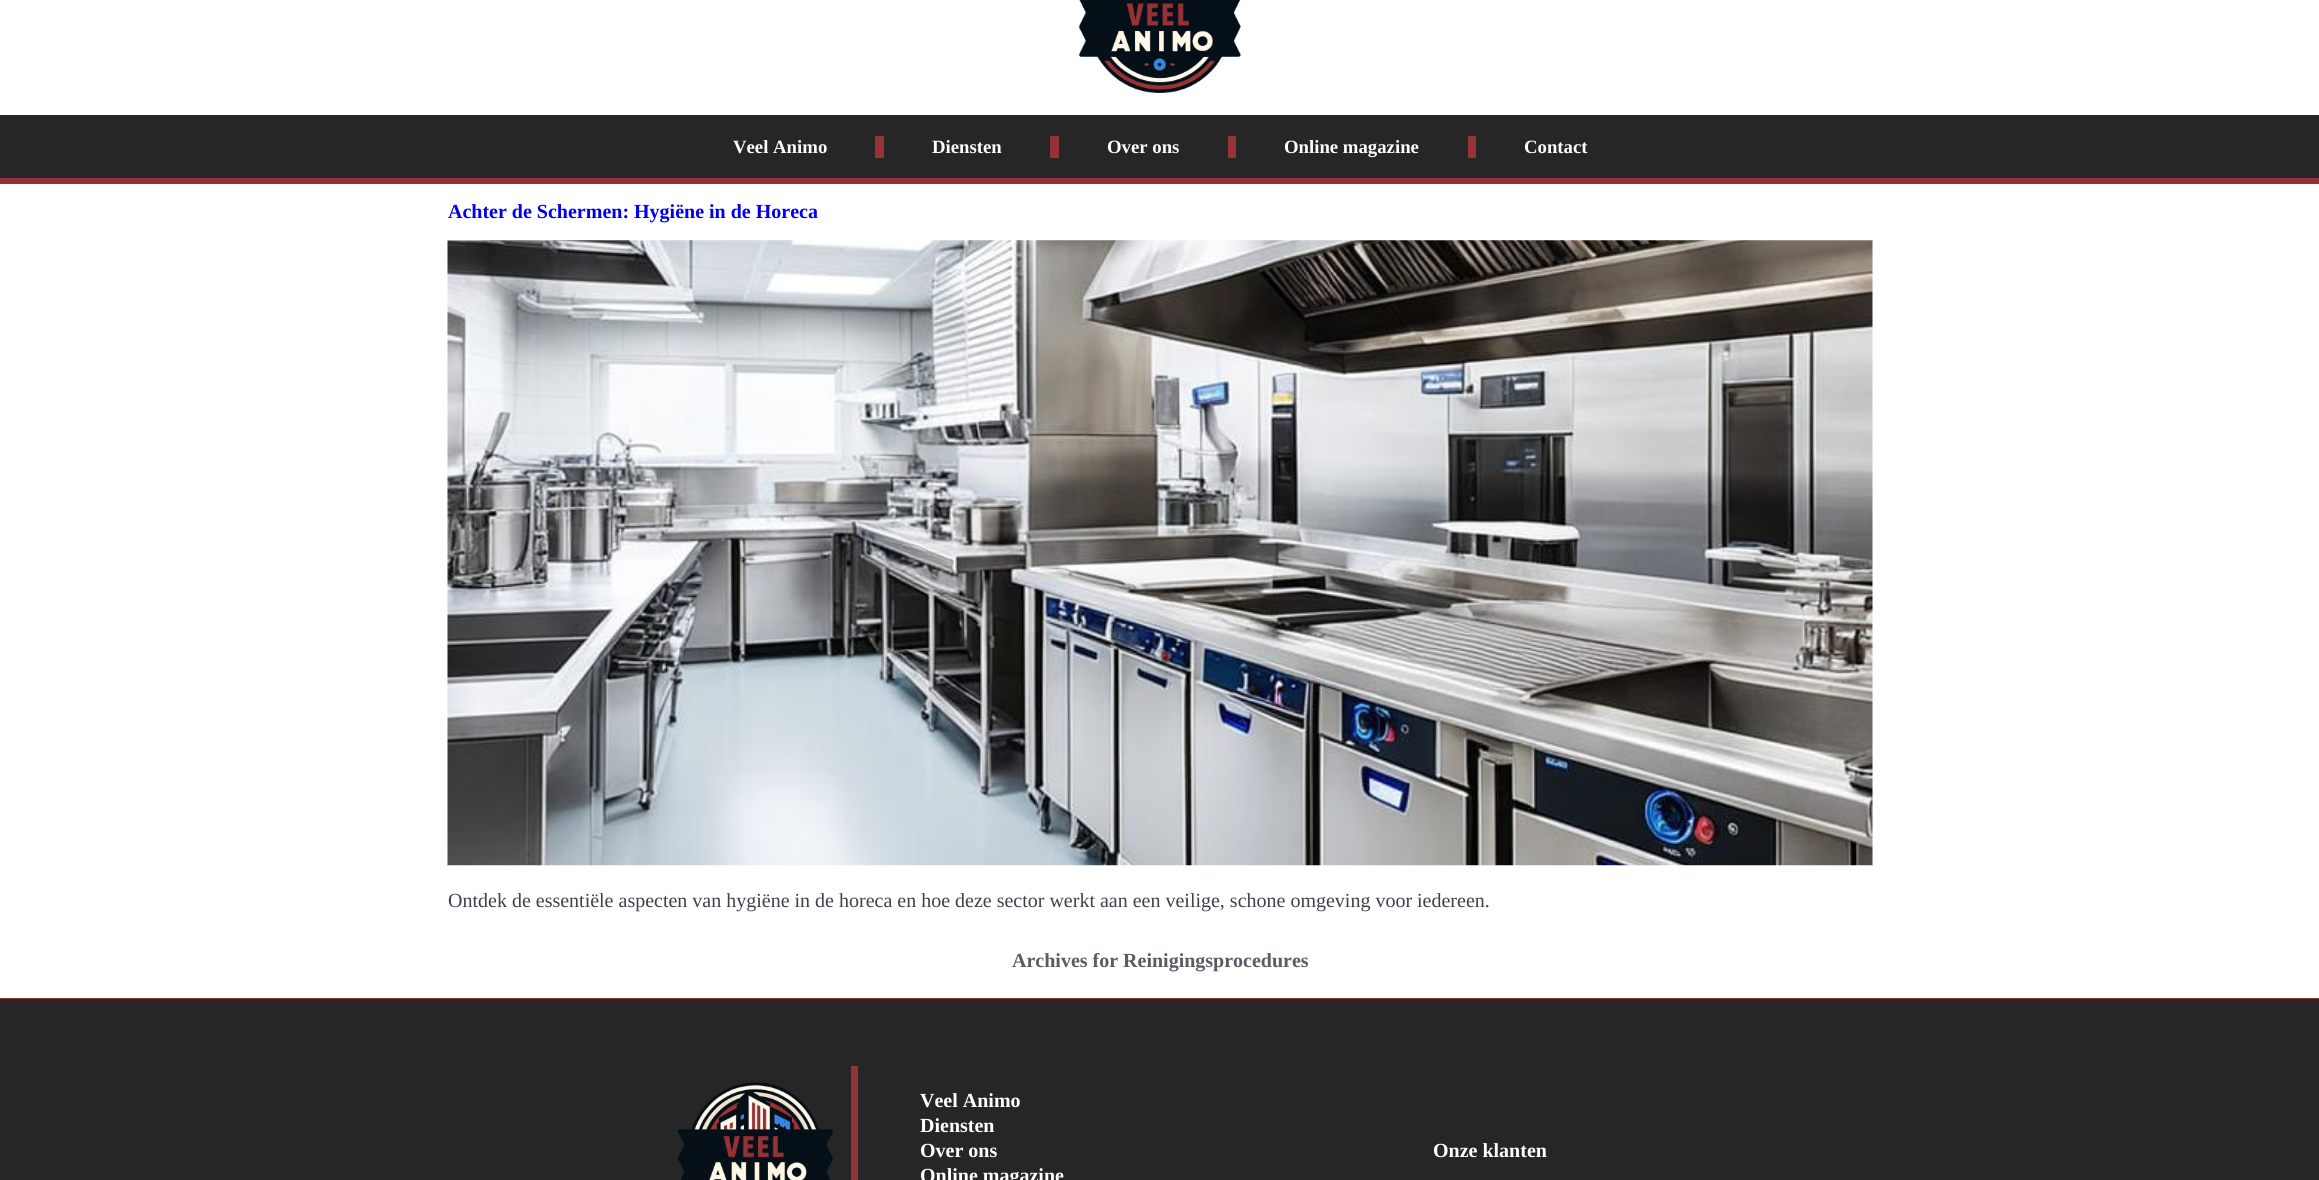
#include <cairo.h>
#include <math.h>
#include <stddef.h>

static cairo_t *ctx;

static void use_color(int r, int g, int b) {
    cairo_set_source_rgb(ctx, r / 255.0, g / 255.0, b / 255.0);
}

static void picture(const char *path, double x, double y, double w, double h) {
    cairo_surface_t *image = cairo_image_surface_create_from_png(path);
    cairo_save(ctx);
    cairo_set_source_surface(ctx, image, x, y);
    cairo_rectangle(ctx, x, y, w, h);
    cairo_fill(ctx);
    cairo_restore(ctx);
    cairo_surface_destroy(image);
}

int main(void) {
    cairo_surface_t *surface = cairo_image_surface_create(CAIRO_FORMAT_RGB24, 2319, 1180);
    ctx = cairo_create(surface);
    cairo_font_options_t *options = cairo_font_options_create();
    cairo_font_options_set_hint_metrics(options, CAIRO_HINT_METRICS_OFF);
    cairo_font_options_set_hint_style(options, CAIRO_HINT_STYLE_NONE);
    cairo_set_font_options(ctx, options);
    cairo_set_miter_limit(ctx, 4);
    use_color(255, 255, 255);
    cairo_paint(ctx);
    picture("img1.png", 1078, 0, 163, 93);
    use_color(39, 38, 38);
    cairo_rectangle(ctx, 0, 115, 2319, 63);
    cairo_fill(ctx);
    use_color(149, 50, 56);
    cairo_rectangle(ctx, 0, 178, 2319, 6);
    cairo_fill(ctx);
    cairo_select_font_face(ctx, "Liberation Serif", CAIRO_FONT_SLANT_NORMAL, CAIRO_FONT_WEIGHT_BOLD);
    cairo_set_font_size(ctx, 18.75);
    use_color(255, 255, 255);
    cairo_move_to(ctx, 733, 153);
    cairo_show_text(ctx, "Veel Animo");
    use_color(149, 50, 56);
    cairo_rectangle(ctx, 875, 136, 9, 22);
    cairo_fill(ctx);
    use_color(255, 255, 255);
    cairo_move_to(ctx, 932, 153);
    cairo_show_text(ctx, "Diensten");
    use_color(149, 50, 56);
    cairo_rectangle(ctx, 1050, 136, 9, 22);
    cairo_fill(ctx);
    use_color(255, 255, 255);
    cairo_move_to(ctx, 1107, 153);
    cairo_show_text(ctx, "Over ons");
    use_color(149, 50, 56);
    cairo_rectangle(ctx, 1228, 136, 8, 22);
    cairo_fill(ctx);
    use_color(255, 255, 255);
    cairo_move_to(ctx, 1284, 153);
    cairo_show_text(ctx, "Online magazine");
    use_color(149, 50, 56);
    cairo_rectangle(ctx, 1468, 136, 8, 22);
    cairo_fill(ctx);
    use_color(255, 255, 255);
    cairo_move_to(ctx, 1524, 153);
    cairo_show_text(ctx, "Contact");
    cairo_set_font_size(ctx, 20);
    use_color(0, 0, 238);
    cairo_move_to(ctx, 448, 218);
    cairo_show_text(ctx, "Achter de Schermen: Hygiëne in de Horeca");
    picture("img2.png", 447, 240, 1426, 626);
    cairo_select_font_face(ctx, "Liberation Serif", CAIRO_FONT_SLANT_NORMAL, CAIRO_FONT_WEIGHT_NORMAL);
    use_color(61, 65, 76);
    cairo_move_to(ctx, 448, 907);
    cairo_show_text(ctx, "Ontdek de essentiële aspecten van hygiëne in de horeca en hoe deze sector werkt aan een veilige, schone omgeving voor iedereen.");
    cairo_select_font_face(ctx, "Liberation Serif", CAIRO_FONT_SLANT_NORMAL, CAIRO_FONT_WEIGHT_BOLD);
    use_color(88, 92, 101);
    cairo_move_to(ctx, 1012, 967);
    cairo_show_text(ctx, "Archives for Reinigingsprocedures");
    use_color(39, 38, 38);
    cairo_rectangle(ctx, 0, 999, 2319, 181);
    cairo_fill(ctx);
    use_color(149, 50, 56);
    cairo_rectangle(ctx, 0, 998, 2319, 1);
    cairo_fill(ctx);
    cairo_rectangle(ctx, 851, 1066, 7, 114);
    cairo_fill(ctx);
    picture("img3.png", 677, 1082, 157, 98);
    use_color(255, 255, 255);
    cairo_move_to(ctx, 920, 1107);
    cairo_show_text(ctx, "Veel Animo");
    cairo_move_to(ctx, 920, 1132);
    cairo_show_text(ctx, "Diensten");
    cairo_move_to(ctx, 920, 1157);
    cairo_show_text(ctx, "Over ons");
    cairo_move_to(ctx, 920, 1182);
    cairo_show_text(ctx, "Online magazine");
    cairo_move_to(ctx, 1433, 1157);
    cairo_show_text(ctx, "Onze klanten");
    cairo_surface_write_to_png(surface, "result.png");
    cairo_font_options_destroy(options);
    cairo_destroy(ctx);
    cairo_surface_destroy(surface);
    return 0;
}
